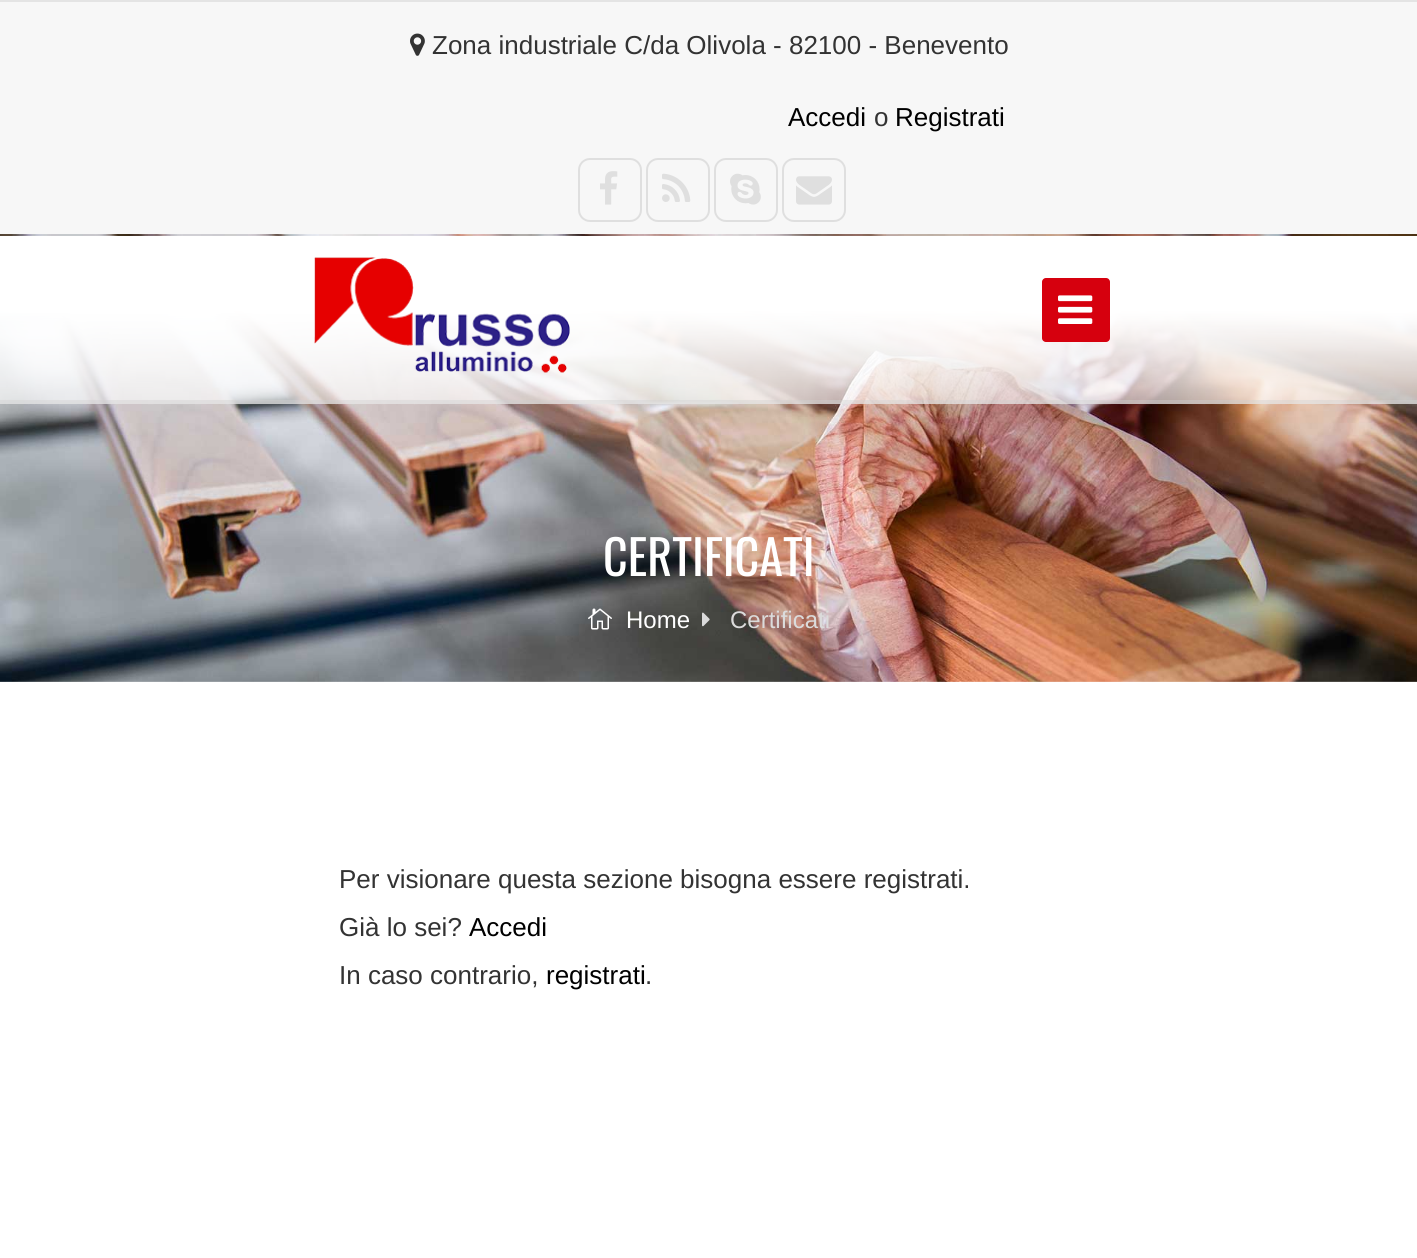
#include <cairo.h>
#include <math.h>
#include <stddef.h>

static cairo_t *ctx;

static void use_color(int r, int g, int b) {
    cairo_set_source_rgb(ctx, r / 255.0, g / 255.0, b / 255.0);
}

static void round_rect(double x, double y, double w, double h, double r) {
    cairo_new_sub_path(ctx);
    cairo_arc(ctx, x + w - r, y + h - r, r, 0, M_PI / 2);
    cairo_arc(ctx, x + r, y + h - r, r, M_PI / 2, M_PI);
    cairo_arc(ctx, x + r, y + r, r, M_PI, 1.5 * M_PI);
    cairo_arc(ctx, x + w - r, y + r, r, 1.5 * M_PI, 2 * M_PI);
    cairo_close_path(ctx);
}

static void picture(const char *path, double x, double y, double w, double h) {
    cairo_surface_t *image = cairo_image_surface_create_from_png(path);
    cairo_save(ctx);
    cairo_set_source_surface(ctx, image, x, y);
    cairo_rectangle(ctx, x, y, w, h);
    cairo_fill(ctx);
    cairo_restore(ctx);
    cairo_surface_destroy(image);
}

int main(void) {
    cairo_surface_t *surface = cairo_image_surface_create(CAIRO_FORMAT_RGB24, 1417, 1258);
    ctx = cairo_create(surface);
    cairo_font_options_t *options = cairo_font_options_create();
    cairo_font_options_set_hint_metrics(options, CAIRO_HINT_METRICS_OFF);
    cairo_font_options_set_hint_style(options, CAIRO_HINT_STYLE_NONE);
    cairo_set_font_options(ctx, options);
    cairo_set_miter_limit(ctx, 4);
    use_color(255, 255, 255);
    cairo_paint(ctx);
    use_color(247, 247, 247);
    cairo_rectangle(ctx, 0, 2, 1417, 232);
    cairo_fill(ctx);
    use_color(228, 228, 228);
    cairo_rectangle(ctx, 0, 0, 1417, 2);
    cairo_fill(ctx);
    picture("img1.png", 410, 33, 15, 23);
    cairo_select_font_face(ctx, "Liberation Sans", CAIRO_FONT_SLANT_NORMAL, CAIRO_FONT_WEIGHT_NORMAL);
    cairo_set_font_size(ctx, 26);
    use_color(51, 51, 51);
    cairo_move_to(ctx, 432, 54);
    cairo_show_text(ctx, "Zona industriale C/da Olivola - 82100 - Benevento");
    use_color(0, 0, 0);
    cairo_move_to(ctx, 788, 126);
    cairo_show_text(ctx, "Accedi");
    use_color(51, 51, 51);
    cairo_move_to(ctx, 874, 126);
    cairo_show_text(ctx, "o");
    use_color(0, 0, 0);
    cairo_move_to(ctx, 895, 126);
    cairo_show_text(ctx, "Registrati");
    round_rect(579, 159, 62, 62, 11);
    use_color(223, 223, 223);
    cairo_stroke(ctx);
    picture("img2.png", 600, 171, 18, 34);
    round_rect(647, 159, 62, 62, 11);
    cairo_stroke(ctx);
    picture("img3.png", 662, 173, 29, 29);
    round_rect(715, 159, 62, 62, 11);
    cairo_stroke(ctx);
    picture("img4.png", 730, 173, 31, 32);
    round_rect(783, 159, 62, 62, 11);
    cairo_stroke(ctx);
    picture("img5.png", 796, 176, 36, 29);
    picture("img9.png", 0, 234, 1417, 448);
    picture("img6.png", 0, 236, 1417, 168);
    cairo_set_source_rgba(ctx, 0.82, 0.82, 0.82, 0.4);
    cairo_rectangle(ctx, 0, 400, 1417, 4);
    cairo_fill(ctx);
    picture("img7.png", 314, 257, 256, 116);
    use_color(214, 0, 14);
    round_rect(1042, 278, 68, 64, 4);
    cairo_fill(ctx);
    picture("img8.png", 1058, 295, 35, 29);
    cairo_select_font_face(ctx, "Oswald", CAIRO_FONT_SLANT_NORMAL, CAIRO_FONT_WEIGHT_NORMAL);
    cairo_set_font_size(ctx, 48);
    use_color(255, 255, 255);
    cairo_move_to(ctx, 603, 576);
    cairo_show_text(ctx, "CERTIFICATI");
    picture("img10.png", 588, 608, 24, 22);
    cairo_select_font_face(ctx, "Liberation Sans", CAIRO_FONT_SLANT_NORMAL, CAIRO_FONT_WEIGHT_NORMAL);
    cairo_set_font_size(ctx, 24);
    cairo_move_to(ctx, 626, 628);
    cairo_show_text(ctx, "Home");
    picture("img11.png", 702, 612, 8, 15);
    use_color(219, 219, 219);
    cairo_move_to(ctx, 730, 628);
    cairo_show_text(ctx, "Certificati");
    cairo_set_font_size(ctx, 26);
    use_color(51, 51, 51);
    cairo_move_to(ctx, 339, 888);
    cairo_show_text(ctx, "Per visionare questa sezione bisogna essere registrati.");
    cairo_move_to(ctx, 339, 936);
    cairo_show_text(ctx, "Già lo sei?");
    use_color(0, 0, 0);
    cairo_move_to(ctx, 469, 936);
    cairo_show_text(ctx, "Accedi");
    use_color(51, 51, 51);
    cairo_move_to(ctx, 339, 984);
    cairo_show_text(ctx, "In caso contrario,");
    use_color(0, 0, 0);
    cairo_move_to(ctx, 546, 984);
    cairo_show_text(ctx, "registrati");
    use_color(51, 51, 51);
    cairo_move_to(ctx, 645, 984);
    cairo_show_text(ctx, ".");
    cairo_surface_write_to_png(surface, "result.png");
    cairo_font_options_destroy(options);
    cairo_destroy(ctx);
    cairo_surface_destroy(surface);
    return 0;
}
